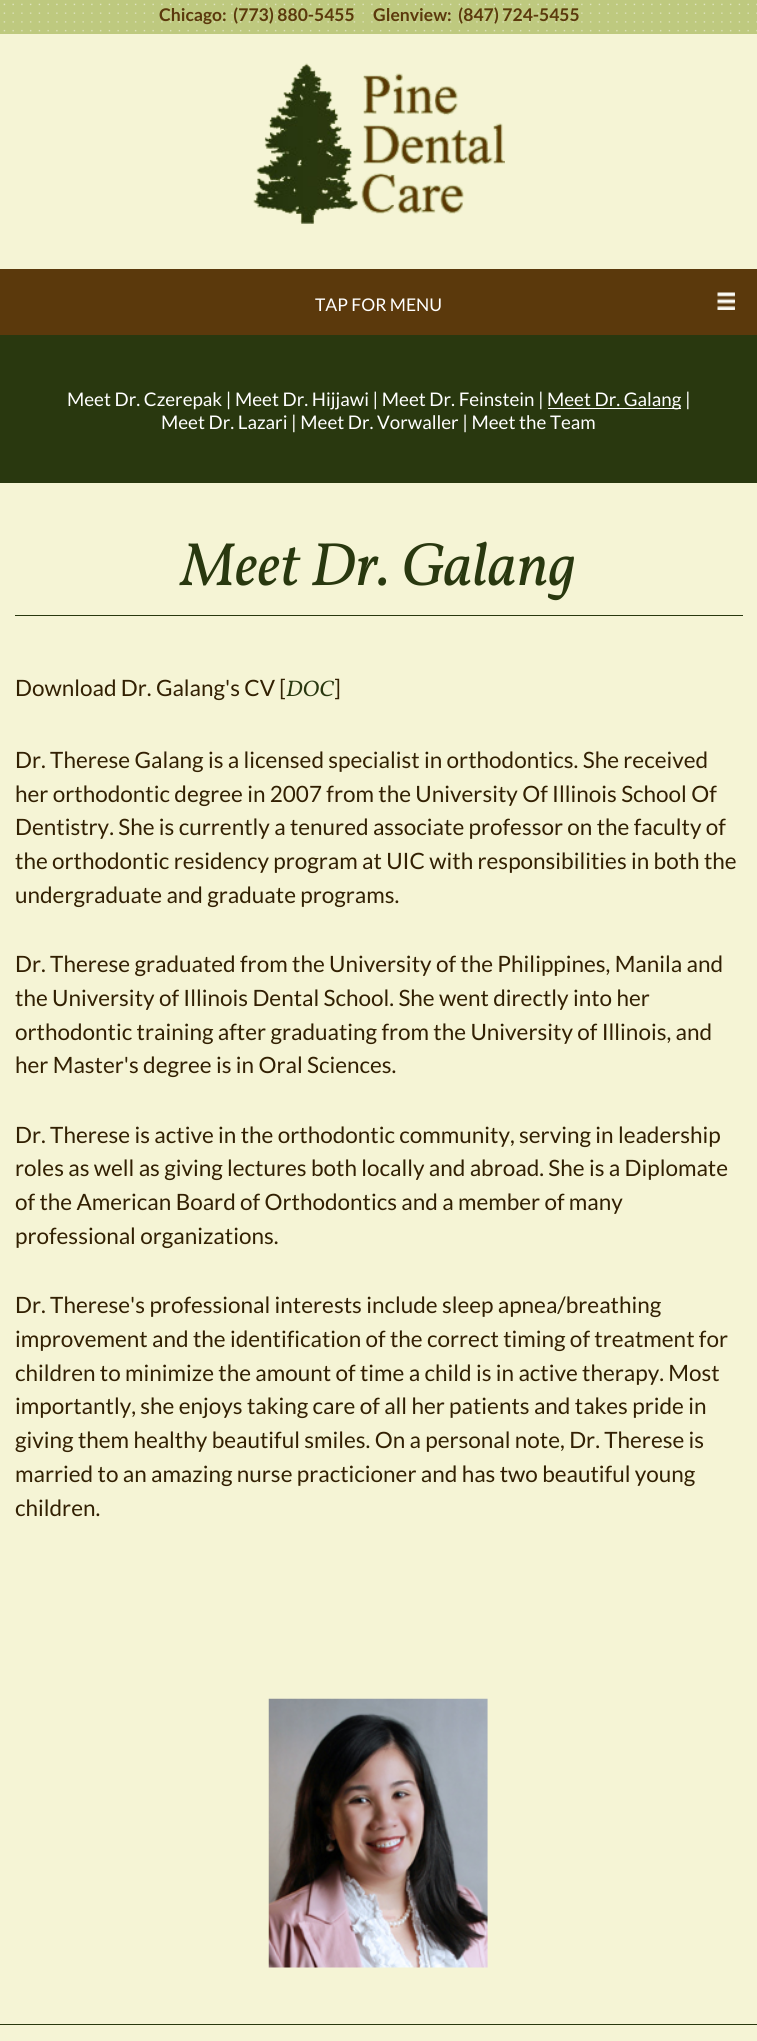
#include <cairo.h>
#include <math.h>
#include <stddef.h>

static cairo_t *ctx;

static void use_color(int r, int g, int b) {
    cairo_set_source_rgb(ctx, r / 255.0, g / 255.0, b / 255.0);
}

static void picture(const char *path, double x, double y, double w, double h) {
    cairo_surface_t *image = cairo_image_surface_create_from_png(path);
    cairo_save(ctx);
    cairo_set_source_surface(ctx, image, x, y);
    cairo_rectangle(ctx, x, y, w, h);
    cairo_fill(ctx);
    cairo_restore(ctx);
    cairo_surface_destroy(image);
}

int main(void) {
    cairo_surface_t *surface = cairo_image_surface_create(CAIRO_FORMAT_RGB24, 757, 2041);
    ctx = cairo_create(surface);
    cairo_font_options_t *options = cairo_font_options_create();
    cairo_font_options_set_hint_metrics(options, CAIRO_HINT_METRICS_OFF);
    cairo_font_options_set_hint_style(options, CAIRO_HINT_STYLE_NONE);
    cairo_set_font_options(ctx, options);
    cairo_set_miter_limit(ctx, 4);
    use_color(245, 244, 213);
    cairo_paint(ctx);
    use_color(190, 201, 127);
    cairo_rectangle(ctx, 0, 0, 757, 34);
    cairo_fill(ctx);
    picture("img1.png", 3, 3, 754, 29);
    cairo_select_font_face(ctx, "Lato", CAIRO_FONT_SLANT_NORMAL, CAIRO_FONT_WEIGHT_BOLD);
    cairo_set_font_size(ctx, 17.5);
    use_color(91, 57, 12);
    cairo_move_to(ctx, 159, 21);
    cairo_show_text(ctx, "Chicago:");
    cairo_move_to(ctx, 233, 21);
    cairo_show_text(ctx, "(773) 880-5455");
    cairo_move_to(ctx, 373, 21);
    cairo_show_text(ctx, "Glenview:");
    cairo_move_to(ctx, 458, 21);
    cairo_show_text(ctx, "(847) 724-5455");
    picture("img2.png", 253, 63, 252, 161);
    cairo_rectangle(ctx, 0, 269, 757, 66);
    cairo_fill(ctx);
    picture("img3.png", 717, 292, 18, 18);
    cairo_select_font_face(ctx, "Lato", CAIRO_FONT_SLANT_NORMAL, CAIRO_FONT_WEIGHT_NORMAL);
    use_color(255, 255, 255);
    cairo_move_to(ctx, 315, 311);
    cairo_show_text(ctx, "TAP FOR MENU");
    use_color(41, 56, 15);
    cairo_rectangle(ctx, 0, 335, 757, 148);
    cairo_fill(ctx);
    cairo_set_font_size(ctx, 18.75);
    use_color(255, 255, 255);
    cairo_move_to(ctx, 67, 406);
    cairo_show_text(ctx, "Meet Dr. Czerepak | Meet Dr. Hijjawi | Meet Dr. Feinstein |");
    cairo_rectangle(ctx, 548, 408, 133, 1);
    cairo_fill(ctx);
    cairo_move_to(ctx, 547, 406);
    cairo_show_text(ctx, "Meet Dr. Galang |");
    cairo_move_to(ctx, 161, 429);
    cairo_show_text(ctx, "Meet Dr. Lazari | Meet Dr. Vorwaller | Meet the Team");
    use_color(41, 56, 15);
    cairo_rectangle(ctx, 15, 615, 728, 1);
    cairo_fill(ctx);
    cairo_select_font_face(ctx, "Vollkorn", CAIRO_FONT_SLANT_ITALIC, CAIRO_FONT_WEIGHT_NORMAL);
    cairo_set_font_size(ctx, 61.25);
    cairo_move_to(ctx, 181, 585);
    cairo_show_text(ctx, "Meet Dr. Galang");
    cairo_select_font_face(ctx, "Lato", CAIRO_FONT_SLANT_NORMAL, CAIRO_FONT_WEIGHT_NORMAL);
    cairo_set_font_size(ctx, 22.5);
    use_color(50, 32, 2);
    cairo_move_to(ctx, 15, 696);
    cairo_show_text(ctx, "Download Dr. Galang's CV [");
    cairo_select_font_face(ctx, "Vollkorn", CAIRO_FONT_SLANT_ITALIC, CAIRO_FONT_WEIGHT_NORMAL);
    use_color(41, 56, 15);
    cairo_move_to(ctx, 286, 696);
    cairo_show_text(ctx, "DOC");
    cairo_select_font_face(ctx, "Lato", CAIRO_FONT_SLANT_NORMAL, CAIRO_FONT_WEIGHT_NORMAL);
    use_color(50, 32, 2);
    cairo_move_to(ctx, 334, 696);
    cairo_show_text(ctx, "]");
    cairo_move_to(ctx, 15, 768);
    cairo_show_text(ctx, "Dr. Therese Galang is a licensed specialist in orthodontics. She received");
    cairo_move_to(ctx, 15, 802);
    cairo_show_text(ctx, "her orthodontic degree in 2007 from the University Of Illinois School Of");
    cairo_move_to(ctx, 15, 835);
    cairo_show_text(ctx, "Dentistry. She is currently a tenured associate professor on the faculty of");
    cairo_move_to(ctx, 15, 869);
    cairo_show_text(ctx, "the orthodontic residency program at UIC with responsibilities in both the");
    cairo_move_to(ctx, 15, 903);
    cairo_show_text(ctx, "undergraduate and graduate programs.");
    cairo_move_to(ctx, 15, 972);
    cairo_show_text(ctx, "Dr. Therese graduated from the University of the Philippines, Manila and");
    cairo_move_to(ctx, 15, 1006);
    cairo_show_text(ctx, "the University of Illinois Dental School. She went directly into her");
    cairo_move_to(ctx, 15, 1040);
    cairo_show_text(ctx, "orthodontic training after graduating from the University of Illinois, and");
    cairo_move_to(ctx, 15, 1073);
    cairo_show_text(ctx, "her Master's degree is in Oral Sciences.");
    cairo_move_to(ctx, 15, 1143);
    cairo_show_text(ctx, "Dr. Therese is active in the orthodontic community, serving in leadership");
    cairo_move_to(ctx, 15, 1176);
    cairo_show_text(ctx, "roles as well as giving lectures both locally and abroad. She is a Diplomate");
    cairo_move_to(ctx, 15, 1210);
    cairo_show_text(ctx, "of the American Board of Orthodontics and a member of many");
    cairo_move_to(ctx, 15, 1244);
    cairo_show_text(ctx, "professional organizations.");
    cairo_move_to(ctx, 15, 1313);
    cairo_show_text(ctx, "Dr. Therese's professional interests include sleep apnea/breathing");
    cairo_move_to(ctx, 15, 1347);
    cairo_show_text(ctx, "improvement and the identification of the correct timing of treatment for");
    cairo_move_to(ctx, 15, 1381);
    cairo_show_text(ctx, "children to minimize the amount of time a child is in active therapy. Most");
    cairo_move_to(ctx, 15, 1414);
    cairo_show_text(ctx, "importantly, she enjoys taking care of all her patients and takes pride in");
    cairo_move_to(ctx, 15, 1448);
    cairo_show_text(ctx, "giving them healthy beautiful smiles. On a personal note, Dr. Therese is");
    cairo_move_to(ctx, 15, 1482);
    cairo_show_text(ctx, "married to an amazing nurse practicioner and has two beautiful young");
    cairo_move_to(ctx, 15, 1516);
    cairo_show_text(ctx, "children.");
    picture("img4.png", 268, 1698, 220, 270);
    use_color(41, 56, 15);
    cairo_rectangle(ctx, 0, 2024, 757, 1);
    cairo_fill(ctx);
    cairo_surface_write_to_png(surface, "result.png");
    cairo_font_options_destroy(options);
    cairo_destroy(ctx);
    cairo_surface_destroy(surface);
    return 0;
}
